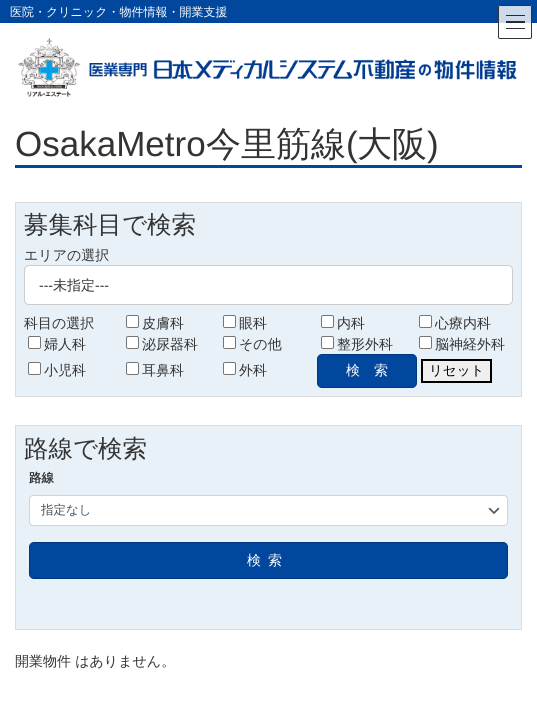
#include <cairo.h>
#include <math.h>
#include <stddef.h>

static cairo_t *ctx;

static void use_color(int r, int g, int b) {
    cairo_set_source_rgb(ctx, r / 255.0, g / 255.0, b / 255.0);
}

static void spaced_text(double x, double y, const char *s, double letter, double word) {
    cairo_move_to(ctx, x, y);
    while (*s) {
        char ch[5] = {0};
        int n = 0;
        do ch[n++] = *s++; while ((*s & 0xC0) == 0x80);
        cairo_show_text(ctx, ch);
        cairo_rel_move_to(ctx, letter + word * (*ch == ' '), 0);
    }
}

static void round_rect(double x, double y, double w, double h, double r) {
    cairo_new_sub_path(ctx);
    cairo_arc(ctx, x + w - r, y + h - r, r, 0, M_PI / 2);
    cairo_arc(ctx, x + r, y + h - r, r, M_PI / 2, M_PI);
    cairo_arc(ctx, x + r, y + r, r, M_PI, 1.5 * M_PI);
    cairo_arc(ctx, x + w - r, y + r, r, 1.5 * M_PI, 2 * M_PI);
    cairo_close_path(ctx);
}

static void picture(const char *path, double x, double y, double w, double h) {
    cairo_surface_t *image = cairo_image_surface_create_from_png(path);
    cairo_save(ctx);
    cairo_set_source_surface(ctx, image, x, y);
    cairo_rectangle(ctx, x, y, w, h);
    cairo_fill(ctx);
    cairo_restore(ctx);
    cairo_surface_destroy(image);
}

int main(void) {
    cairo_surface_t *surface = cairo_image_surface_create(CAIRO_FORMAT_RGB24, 537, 717);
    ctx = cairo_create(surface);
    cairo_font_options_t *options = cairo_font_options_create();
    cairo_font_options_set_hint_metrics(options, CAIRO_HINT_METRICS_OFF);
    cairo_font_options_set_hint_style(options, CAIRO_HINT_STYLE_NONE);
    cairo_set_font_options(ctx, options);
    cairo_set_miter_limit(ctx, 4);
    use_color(255, 255, 255);
    cairo_paint(ctx);
    use_color(0, 71, 157);
    cairo_rectangle(ctx, 0, 0, 537, 22);
    cairo_fill(ctx);
    use_color(0, 68, 151);
    cairo_rectangle(ctx, 0, 22, 537, 1);
    cairo_fill(ctx);
    cairo_select_font_face(ctx, "WenQuanYi Zen Hei Medium", CAIRO_FONT_SLANT_NORMAL, CAIRO_FONT_WEIGHT_NORMAL);
    cairo_set_font_size(ctx, 12);
    use_color(255, 255, 255);
    cairo_move_to(ctx, 10, 16);
    cairo_show_text(ctx, "医院・クリニック・物件情報・開業支援");
    picture("img1.png", 18, 38, 499, 59);
    cairo_set_source_rgba(ctx, 1, 1, 1, 0.8);
    round_rect(498, 5, 34, 34, 2);
    cairo_fill(ctx);
    use_color(41, 44, 47);
    cairo_rectangle(ctx, 506, 15, 19, 1);
    cairo_fill(ctx);
    cairo_rectangle(ctx, 506, 21, 19, 2);
    cairo_fill(ctx);
    use_color(51, 51, 51);
    cairo_rectangle(ctx, 506, 28, 19, 1);
    cairo_fill(ctx);
    round_rect(498.5, 5.5, 33, 33, 1.5);
    cairo_set_line_width(ctx, 1);
    cairo_stroke(ctx);
    use_color(0, 71, 157);
    cairo_rectangle(ctx, 15, 165, 507, 3);
    cairo_fill(ctx);
    cairo_select_font_face(ctx, "Liberation Sans", CAIRO_FONT_SLANT_NORMAL, CAIRO_FONT_WEIGHT_NORMAL);
    cairo_set_font_size(ctx, 35);
    use_color(51, 51, 51);
    cairo_move_to(ctx, 15, 156);
    cairo_show_text(ctx, "OsakaMetro");
    cairo_select_font_face(ctx, "WenQuanYi Zen Hei Medium", CAIRO_FONT_SLANT_NORMAL, CAIRO_FONT_WEIGHT_NORMAL);
    cairo_move_to(ctx, 206, 156);
    cairo_show_text(ctx, "今里筋線");
    cairo_select_font_face(ctx, "Liberation Sans", CAIRO_FONT_SLANT_NORMAL, CAIRO_FONT_WEIGHT_NORMAL);
    cairo_move_to(ctx, 346, 156);
    cairo_show_text(ctx, "(");
    cairo_select_font_face(ctx, "WenQuanYi Zen Hei Medium", CAIRO_FONT_SLANT_NORMAL, CAIRO_FONT_WEIGHT_NORMAL);
    cairo_move_to(ctx, 357, 156);
    cairo_show_text(ctx, "大阪");
    cairo_select_font_face(ctx, "Liberation Sans", CAIRO_FONT_SLANT_NORMAL, CAIRO_FONT_WEIGHT_NORMAL);
    cairo_move_to(ctx, 427, 156);
    cairo_show_text(ctx, ")");
    use_color(233, 241, 248);
    cairo_rectangle(ctx, 15.5, 202.5, 506, 194);
    cairo_fill_preserve(ctx);
    use_color(220, 220, 220);
    cairo_stroke(ctx);
    cairo_select_font_face(ctx, "WenQuanYi Zen Hei Medium", CAIRO_FONT_SLANT_NORMAL, CAIRO_FONT_WEIGHT_NORMAL);
    cairo_set_font_size(ctx, 24.5);
    use_color(51, 51, 51);
    cairo_move_to(ctx, 24, 233);
    cairo_show_text(ctx, "募集科目で検索");
    cairo_set_font_size(ctx, 14);
    cairo_move_to(ctx, 24, 260);
    cairo_show_text(ctx, "エリアの選択");
    use_color(255, 255, 255);
    round_rect(24, 265, 489, 40, 5);
    cairo_fill(ctx);
    round_rect(24.5, 265.5, 488, 39, 4.5);
    cairo_set_source_rgba(ctx, 0, 0, 0, 0.2);
    cairo_stroke(ctx);
    cairo_select_font_face(ctx, "Liberation Sans", CAIRO_FONT_SLANT_NORMAL, CAIRO_FONT_WEIGHT_NORMAL);
    use_color(51, 51, 51);
    cairo_move_to(ctx, 39, 290);
    cairo_show_text(ctx, "---");
    cairo_select_font_face(ctx, "WenQuanYi Zen Hei Medium", CAIRO_FONT_SLANT_NORMAL, CAIRO_FONT_WEIGHT_NORMAL);
    cairo_move_to(ctx, 53, 290);
    cairo_show_text(ctx, "未指定");
    cairo_select_font_face(ctx, "Liberation Sans", CAIRO_FONT_SLANT_NORMAL, CAIRO_FONT_WEIGHT_NORMAL);
    cairo_move_to(ctx, 95, 290);
    cairo_show_text(ctx, "---");
    cairo_select_font_face(ctx, "WenQuanYi Zen Hei Medium", CAIRO_FONT_SLANT_NORMAL, CAIRO_FONT_WEIGHT_NORMAL);
    cairo_move_to(ctx, 24, 328);
    cairo_show_text(ctx, "科目の選択");
    use_color(255, 255, 255);
    round_rect(126.5, 315.5, 12, 12, 1.5);
    cairo_fill_preserve(ctx);
    use_color(118, 118, 118);
    cairo_stroke(ctx);
    use_color(51, 51, 51);
    cairo_move_to(ctx, 142, 328);
    cairo_show_text(ctx, "皮膚科");
    use_color(255, 255, 255);
    round_rect(223.5, 315.5, 12, 12, 1.5);
    cairo_fill_preserve(ctx);
    use_color(118, 118, 118);
    cairo_stroke(ctx);
    use_color(51, 51, 51);
    cairo_move_to(ctx, 239, 328);
    cairo_show_text(ctx, "眼科");
    use_color(255, 255, 255);
    round_rect(321.5, 315.5, 12, 12, 1.5);
    cairo_fill_preserve(ctx);
    use_color(118, 118, 118);
    cairo_stroke(ctx);
    use_color(51, 51, 51);
    cairo_move_to(ctx, 337, 328);
    cairo_show_text(ctx, "内科");
    use_color(255, 255, 255);
    round_rect(419.5, 315.5, 12, 12, 1.5);
    cairo_fill_preserve(ctx);
    use_color(118, 118, 118);
    cairo_stroke(ctx);
    use_color(51, 51, 51);
    cairo_move_to(ctx, 435, 328);
    cairo_show_text(ctx, "心療内科");
    use_color(255, 255, 255);
    round_rect(28.5, 336.5, 12, 12, 1.5);
    cairo_fill_preserve(ctx);
    use_color(118, 118, 118);
    cairo_stroke(ctx);
    use_color(51, 51, 51);
    cairo_move_to(ctx, 44, 349);
    cairo_show_text(ctx, "婦人科");
    use_color(255, 255, 255);
    round_rect(126.5, 336.5, 12, 12, 1.5);
    cairo_fill_preserve(ctx);
    use_color(118, 118, 118);
    cairo_stroke(ctx);
    use_color(51, 51, 51);
    cairo_move_to(ctx, 142, 349);
    cairo_show_text(ctx, "泌尿器科");
    use_color(255, 255, 255);
    round_rect(223.5, 336.5, 12, 12, 1.5);
    cairo_fill_preserve(ctx);
    use_color(118, 118, 118);
    cairo_stroke(ctx);
    use_color(51, 51, 51);
    cairo_move_to(ctx, 239, 349);
    cairo_show_text(ctx, "その他");
    use_color(255, 255, 255);
    round_rect(321.5, 336.5, 12, 12, 1.5);
    cairo_fill_preserve(ctx);
    use_color(118, 118, 118);
    cairo_stroke(ctx);
    use_color(51, 51, 51);
    cairo_move_to(ctx, 337, 349);
    cairo_show_text(ctx, "整形外科");
    use_color(255, 255, 255);
    round_rect(419.5, 336.5, 12, 12, 1.5);
    cairo_fill_preserve(ctx);
    use_color(118, 118, 118);
    cairo_stroke(ctx);
    use_color(51, 51, 51);
    cairo_move_to(ctx, 435, 349);
    cairo_show_text(ctx, "脳神経外科");
    use_color(255, 255, 255);
    round_rect(28.5, 362.5, 12, 12, 1.5);
    cairo_fill_preserve(ctx);
    use_color(118, 118, 118);
    cairo_stroke(ctx);
    use_color(51, 51, 51);
    cairo_move_to(ctx, 44, 375);
    cairo_show_text(ctx, "小児科");
    use_color(255, 255, 255);
    round_rect(126.5, 362.5, 12, 12, 1.5);
    cairo_fill_preserve(ctx);
    use_color(118, 118, 118);
    cairo_stroke(ctx);
    use_color(51, 51, 51);
    cairo_move_to(ctx, 142, 375);
    cairo_show_text(ctx, "耳鼻科");
    use_color(255, 255, 255);
    round_rect(223.5, 362.5, 12, 12, 1.5);
    cairo_fill_preserve(ctx);
    use_color(118, 118, 118);
    cairo_stroke(ctx);
    use_color(51, 51, 51);
    cairo_move_to(ctx, 239, 375);
    cairo_show_text(ctx, "外科");
    use_color(0, 71, 157);
    round_rect(317.5, 354.5, 99, 33, 4.5);
    cairo_fill_preserve(ctx);
    use_color(0, 56, 125);
    cairo_stroke(ctx);
    use_color(255, 255, 255);
    cairo_move_to(ctx, 346, 375);
    cairo_show_text(ctx, "検　索");
    use_color(239, 239, 239);
    cairo_rectangle(ctx, 422, 360, 69, 22);
    cairo_fill_preserve(ctx);
    use_color(0, 0, 0);
    cairo_set_line_width(ctx, 2);
    cairo_stroke(ctx);
    cairo_set_font_size(ctx, 13.5);
    cairo_move_to(ctx, 429, 375);
    cairo_show_text(ctx, "リセット");
    use_color(233, 241, 248);
    cairo_rectangle(ctx, 15.5, 425.5, 506, 204);
    cairo_fill_preserve(ctx);
    use_color(220, 220, 220);
    cairo_set_line_width(ctx, 1);
    cairo_stroke(ctx);
    cairo_set_font_size(ctx, 24.5);
    use_color(51, 51, 51);
    cairo_move_to(ctx, 24, 457);
    cairo_show_text(ctx, "路線で検索");
    cairo_select_font_face(ctx, "WenQuanYi Zen Hei", CAIRO_FONT_SLANT_NORMAL, CAIRO_FONT_WEIGHT_BOLD);
    cairo_set_font_size(ctx, 12.5);
    cairo_move_to(ctx, 29, 482);
    cairo_show_text(ctx, "路線");
    use_color(255, 255, 255);
    round_rect(30, 496, 477, 29, 2.5);
    cairo_fill(ctx);
    picture("img2.png", 488, 507, 12, 7);
    round_rect(29.5, 495.5, 478, 30, 3.5);
    use_color(206, 212, 218);
    cairo_stroke(ctx);
    cairo_select_font_face(ctx, "WenQuanYi Zen Hei Medium", CAIRO_FONT_SLANT_NORMAL, CAIRO_FONT_WEIGHT_NORMAL);
    use_color(73, 80, 87);
    cairo_move_to(ctx, 41, 514);
    cairo_show_text(ctx, "指定なし");
    use_color(0, 71, 157);
    round_rect(29.5, 542.5, 478, 36, 4.5);
    cairo_fill_preserve(ctx);
    use_color(0, 56, 125);
    cairo_stroke(ctx);
    cairo_set_font_size(ctx, 14);
    use_color(255, 255, 255);
    spaced_text(247, 565, "検索", 7, 0);
    use_color(51, 51, 51);
    cairo_move_to(ctx, 15, 666);
    cairo_show_text(ctx, "開業物件 はありません。");
    cairo_surface_write_to_png(surface, "result.png");
    cairo_font_options_destroy(options);
    cairo_destroy(ctx);
    cairo_surface_destroy(surface);
    return 0;
}
